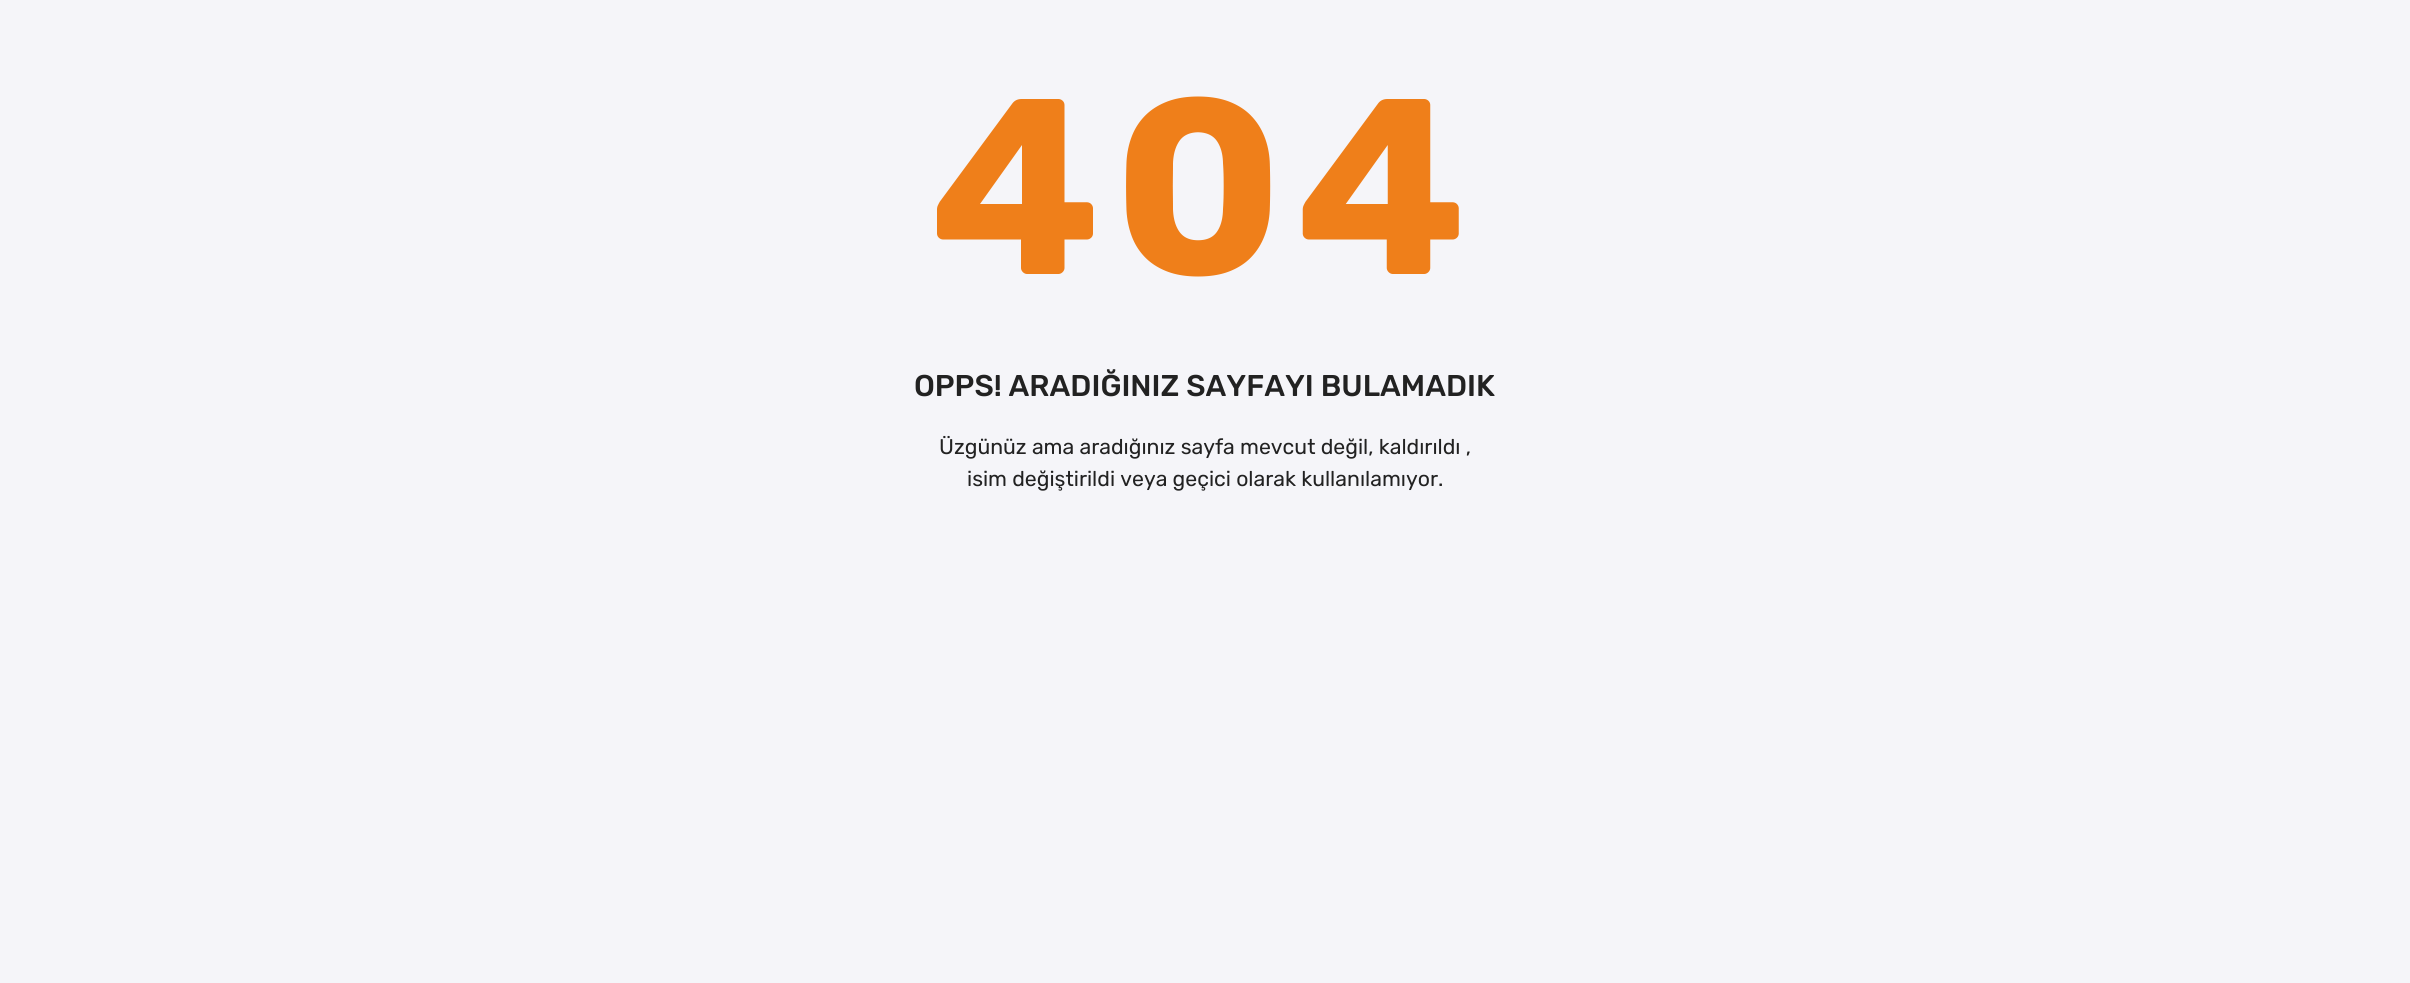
#include <cairo.h>
#include <math.h>
#include <stddef.h>

static cairo_t *ctx;

static void use_color(int r, int g, int b) {
    cairo_set_source_rgb(ctx, r / 255.0, g / 255.0, b / 255.0);
}

static void spaced_text(double x, double y, const char *s, double letter, double word) {
    cairo_move_to(ctx, x, y);
    while (*s) {
        char ch[5] = {0};
        int n = 0;
        do ch[n++] = *s++; while ((*s & 0xC0) == 0x80);
        cairo_show_text(ctx, ch);
        cairo_rel_move_to(ctx, letter + word * (*ch == ' '), 0);
    }
}

int main(void) {
    cairo_surface_t *surface = cairo_image_surface_create(CAIRO_FORMAT_RGB24, 2410, 983);
    ctx = cairo_create(surface);
    cairo_font_options_t *options = cairo_font_options_create();
    cairo_font_options_set_hint_metrics(options, CAIRO_HINT_METRICS_OFF);
    cairo_font_options_set_hint_style(options, CAIRO_HINT_STYLE_NONE);
    cairo_set_font_options(ctx, options);
    cairo_set_miter_limit(ctx, 4);
    use_color(245, 245, 249);
    cairo_paint(ctx);
    cairo_select_font_face(ctx, "Rubik", CAIRO_FONT_SLANT_NORMAL, CAIRO_FONT_WEIGHT_BOLD);
    cairo_set_font_size(ctx, 250);
    use_color(239, 127, 26);
    spaced_text(930, 274, "404", 12.5, 0);
    cairo_select_font_face(ctx, "Rubik Medium", CAIRO_FONT_SLANT_NORMAL, CAIRO_FONT_WEIGHT_NORMAL);
    cairo_set_font_size(ctx, 30);
    use_color(34, 34, 34);
    cairo_move_to(ctx, 914, 396);
    cairo_show_text(ctx, "OPPS! ARADIĞINIZ SAYFAYI BULAMADIK");
    cairo_select_font_face(ctx, "Rubik", CAIRO_FONT_SLANT_NORMAL, CAIRO_FONT_WEIGHT_NORMAL);
    cairo_set_font_size(ctx, 21.25);
    cairo_move_to(ctx, 939, 454);
    cairo_show_text(ctx, "Üzgünüz ama aradığınız sayfa mevcut değil, kaldırıldı ,");
    cairo_move_to(ctx, 967, 486);
    cairo_show_text(ctx, "isim değiştirildi veya geçici olarak kullanılamıyor.");
    cairo_surface_write_to_png(surface, "result.png");
    cairo_font_options_destroy(options);
    cairo_destroy(ctx);
    cairo_surface_destroy(surface);
    return 0;
}
